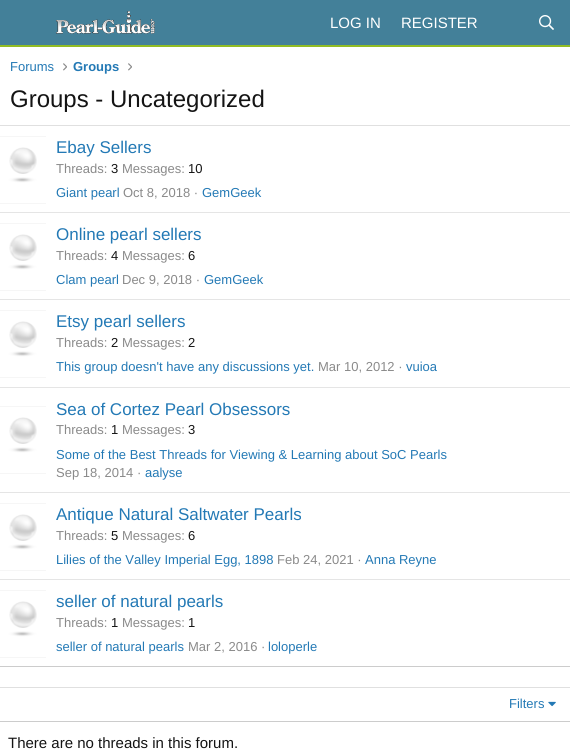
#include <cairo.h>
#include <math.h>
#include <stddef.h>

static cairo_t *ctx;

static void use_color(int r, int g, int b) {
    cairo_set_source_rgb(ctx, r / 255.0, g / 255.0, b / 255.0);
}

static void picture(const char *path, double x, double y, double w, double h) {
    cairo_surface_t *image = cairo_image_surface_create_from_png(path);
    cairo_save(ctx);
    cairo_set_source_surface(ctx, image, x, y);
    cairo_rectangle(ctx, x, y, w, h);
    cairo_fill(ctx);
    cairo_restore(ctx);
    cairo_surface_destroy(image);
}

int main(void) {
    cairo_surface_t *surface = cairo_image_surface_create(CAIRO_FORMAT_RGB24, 570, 749);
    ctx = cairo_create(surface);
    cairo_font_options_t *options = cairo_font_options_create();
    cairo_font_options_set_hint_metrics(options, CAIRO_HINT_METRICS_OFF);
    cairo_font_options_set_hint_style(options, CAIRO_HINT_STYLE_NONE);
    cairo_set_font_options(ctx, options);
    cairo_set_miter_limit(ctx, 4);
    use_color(255, 255, 255);
    cairo_paint(ctx);
    use_color(67, 128, 153);
    cairo_rectangle(ctx, 0, 0, 570, 45);
    cairo_fill(ctx);
    use_color(145, 188, 36);
    cairo_rectangle(ctx, 0, 45, 570, 2);
    cairo_fill(ctx);
    picture("img1.png", 56, 11, 99, 23);
    cairo_select_font_face(ctx, "Liberation Sans", CAIRO_FONT_SLANT_NORMAL, CAIRO_FONT_WEIGHT_NORMAL);
    cairo_set_font_size(ctx, 15);
    use_color(255, 255, 255);
    cairo_move_to(ctx, 330, 28);
    cairo_show_text(ctx, "LOG IN");
    cairo_move_to(ctx, 401, 28);
    cairo_show_text(ctx, "REGISTER");
    picture("img2.png", 539, 15, 15, 15);
    cairo_set_font_size(ctx, 13);
    use_color(35, 121, 181);
    cairo_move_to(ctx, 10, 71);
    cairo_show_text(ctx, "Forums");
    picture("img3.png", 63, 63, 4, 8);
    cairo_select_font_face(ctx, "Liberation Sans", CAIRO_FONT_SLANT_NORMAL, CAIRO_FONT_WEIGHT_BOLD);
    cairo_move_to(ctx, 73, 71);
    cairo_show_text(ctx, "Groups");
    picture("img3.png", 128, 63, 4, 8);
    cairo_select_font_face(ctx, "Liberation Sans", CAIRO_FONT_SLANT_NORMAL, CAIRO_FONT_WEIGHT_NORMAL);
    cairo_set_font_size(ctx, 24);
    use_color(20, 20, 20);
    cairo_move_to(ctx, 10, 107);
    cairo_show_text(ctx, "Groups - Uncategorized");
    use_color(224, 224, 224);
    cairo_rectangle(ctx, 0, 125, 570, 1);
    cairo_fill(ctx);
    use_color(204, 204, 204);
    cairo_rectangle(ctx, 0, 666, 570, 1);
    cairo_fill(ctx);
    picture("img4.png", 0, 136, 46, 68);
    cairo_set_font_size(ctx, 17);
    use_color(35, 121, 181);
    cairo_move_to(ctx, 56, 153);
    cairo_show_text(ctx, "Ebay Sellers");
    cairo_set_font_size(ctx, 13);
    use_color(138, 138, 138);
    cairo_move_to(ctx, 56, 173);
    cairo_show_text(ctx, "Threads:");
    use_color(20, 20, 20);
    cairo_move_to(ctx, 111, 173);
    cairo_show_text(ctx, "3");
    use_color(138, 138, 138);
    cairo_move_to(ctx, 122, 173);
    cairo_show_text(ctx, "Messages:");
    use_color(20, 20, 20);
    cairo_move_to(ctx, 188, 173);
    cairo_show_text(ctx, "10");
    use_color(35, 121, 181);
    cairo_move_to(ctx, 56, 197);
    cairo_show_text(ctx, "Giant pearl");
    use_color(138, 138, 138);
    cairo_move_to(ctx, 123, 197);
    cairo_show_text(ctx, "Oct 8, 2018 ·");
    use_color(35, 121, 181);
    cairo_move_to(ctx, 202, 197);
    cairo_show_text(ctx, "GemGeek");
    use_color(229, 229, 229);
    cairo_rectangle(ctx, 0, 212, 570, 1);
    cairo_fill(ctx);
    picture("img4.png", 0, 223, 46, 68);
    cairo_set_font_size(ctx, 17);
    use_color(35, 121, 181);
    cairo_move_to(ctx, 56, 240);
    cairo_show_text(ctx, "Online pearl sellers");
    cairo_set_font_size(ctx, 13);
    use_color(138, 138, 138);
    cairo_move_to(ctx, 56, 260);
    cairo_show_text(ctx, "Threads:");
    use_color(20, 20, 20);
    cairo_move_to(ctx, 111, 260);
    cairo_show_text(ctx, "4");
    use_color(138, 138, 138);
    cairo_move_to(ctx, 122, 260);
    cairo_show_text(ctx, "Messages:");
    use_color(20, 20, 20);
    cairo_move_to(ctx, 188, 260);
    cairo_show_text(ctx, "6");
    use_color(35, 121, 181);
    cairo_move_to(ctx, 56, 284);
    cairo_show_text(ctx, "Clam pearl");
    use_color(138, 138, 138);
    cairo_move_to(ctx, 122, 284);
    cairo_show_text(ctx, "Dec 9, 2018 ·");
    use_color(35, 121, 181);
    cairo_move_to(ctx, 204, 284);
    cairo_show_text(ctx, "GemGeek");
    use_color(229, 229, 229);
    cairo_rectangle(ctx, 0, 299, 570, 1);
    cairo_fill(ctx);
    picture("img4.png", 0, 310, 46, 68);
    cairo_set_font_size(ctx, 17);
    use_color(35, 121, 181);
    cairo_move_to(ctx, 56, 327);
    cairo_show_text(ctx, "Etsy pearl sellers");
    cairo_set_font_size(ctx, 13);
    use_color(138, 138, 138);
    cairo_move_to(ctx, 56, 347);
    cairo_show_text(ctx, "Threads:");
    use_color(20, 20, 20);
    cairo_move_to(ctx, 111, 347);
    cairo_show_text(ctx, "2");
    use_color(138, 138, 138);
    cairo_move_to(ctx, 122, 347);
    cairo_show_text(ctx, "Messages:");
    use_color(20, 20, 20);
    cairo_move_to(ctx, 188, 347);
    cairo_show_text(ctx, "2");
    use_color(35, 121, 181);
    cairo_move_to(ctx, 56, 371);
    cairo_show_text(ctx, "This group doesn't have any discussions yet.");
    use_color(138, 138, 138);
    cairo_move_to(ctx, 318, 371);
    cairo_show_text(ctx, "Mar 10, 2012 ·");
    use_color(35, 121, 181);
    cairo_move_to(ctx, 406, 371);
    cairo_show_text(ctx, "vuioa");
    use_color(229, 229, 229);
    cairo_rectangle(ctx, 0, 387, 570, 1);
    cairo_fill(ctx);
    picture("img4.png", 0, 406, 46, 68);
    cairo_set_font_size(ctx, 17);
    use_color(35, 121, 181);
    cairo_move_to(ctx, 56, 415);
    cairo_show_text(ctx, "Sea of Cortez Pearl Obsessors");
    cairo_set_font_size(ctx, 13);
    use_color(138, 138, 138);
    cairo_move_to(ctx, 56, 434);
    cairo_show_text(ctx, "Threads:");
    use_color(20, 20, 20);
    cairo_move_to(ctx, 111, 434);
    cairo_show_text(ctx, "1");
    use_color(138, 138, 138);
    cairo_move_to(ctx, 122, 434);
    cairo_show_text(ctx, "Messages:");
    use_color(20, 20, 20);
    cairo_move_to(ctx, 188, 434);
    cairo_show_text(ctx, "3");
    use_color(35, 121, 181);
    cairo_move_to(ctx, 56, 459);
    cairo_show_text(ctx, "Some of the Best Threads for Viewing & Learning about SoC Pearls");
    use_color(138, 138, 138);
    cairo_move_to(ctx, 56, 477);
    cairo_show_text(ctx, "Sep 18, 2014 ·");
    use_color(35, 121, 181);
    cairo_move_to(ctx, 145, 477);
    cairo_show_text(ctx, "aalyse");
    use_color(229, 229, 229);
    cairo_rectangle(ctx, 0, 492, 570, 1);
    cairo_fill(ctx);
    picture("img4.png", 0, 503, 46, 68);
    cairo_set_font_size(ctx, 17);
    use_color(35, 121, 181);
    cairo_move_to(ctx, 56, 520);
    cairo_show_text(ctx, "Antique Natural Saltwater Pearls");
    cairo_set_font_size(ctx, 13);
    use_color(138, 138, 138);
    cairo_move_to(ctx, 56, 540);
    cairo_show_text(ctx, "Threads:");
    use_color(20, 20, 20);
    cairo_move_to(ctx, 111, 540);
    cairo_show_text(ctx, "5");
    use_color(138, 138, 138);
    cairo_move_to(ctx, 122, 540);
    cairo_show_text(ctx, "Messages:");
    use_color(20, 20, 20);
    cairo_move_to(ctx, 188, 540);
    cairo_show_text(ctx, "6");
    use_color(35, 121, 181);
    cairo_move_to(ctx, 56, 564);
    cairo_show_text(ctx, "Lilies of the Valley Imperial Egg, 1898");
    use_color(138, 138, 138);
    cairo_move_to(ctx, 277, 564);
    cairo_show_text(ctx, "Feb 24, 2021 ·");
    use_color(35, 121, 181);
    cairo_move_to(ctx, 365, 564);
    cairo_show_text(ctx, "Anna Reyne");
    use_color(229, 229, 229);
    cairo_rectangle(ctx, 0, 579, 570, 1);
    cairo_fill(ctx);
    picture("img4.png", 0, 590, 46, 68);
    cairo_set_font_size(ctx, 17);
    use_color(35, 121, 181);
    cairo_move_to(ctx, 56, 607);
    cairo_show_text(ctx, "seller of natural pearls");
    cairo_set_font_size(ctx, 13);
    use_color(138, 138, 138);
    cairo_move_to(ctx, 56, 627);
    cairo_show_text(ctx, "Threads:");
    use_color(20, 20, 20);
    cairo_move_to(ctx, 111, 627);
    cairo_show_text(ctx, "1");
    use_color(138, 138, 138);
    cairo_move_to(ctx, 122, 627);
    cairo_show_text(ctx, "Messages:");
    use_color(20, 20, 20);
    cairo_move_to(ctx, 188, 627);
    cairo_show_text(ctx, "1");
    use_color(35, 121, 181);
    cairo_move_to(ctx, 56, 651);
    cairo_show_text(ctx, "seller of natural pearls");
    use_color(138, 138, 138);
    cairo_move_to(ctx, 188, 651);
    cairo_show_text(ctx, "Mar 2, 2016 ·");
    use_color(35, 121, 181);
    cairo_move_to(ctx, 268, 651);
    cairo_show_text(ctx, "loloperle");
    use_color(224, 224, 224);
    cairo_rectangle(ctx, 0, 687, 570, 1);
    cairo_fill(ctx);
    use_color(204, 204, 204);
    cairo_rectangle(ctx, 0, 721, 570, 1);
    cairo_fill(ctx);
    use_color(35, 121, 181);
    cairo_move_to(ctx, 509, 708);
    cairo_show_text(ctx, "Filters");
    picture("img5.png", 548, 701, 8, 6);
    cairo_set_font_size(ctx, 15);
    use_color(20, 20, 20);
    cairo_move_to(ctx, 8, 748);
    cairo_show_text(ctx, "There are no threads in this forum.");
    cairo_surface_write_to_png(surface, "result.png");
    cairo_font_options_destroy(options);
    cairo_destroy(ctx);
    cairo_surface_destroy(surface);
    return 0;
}
